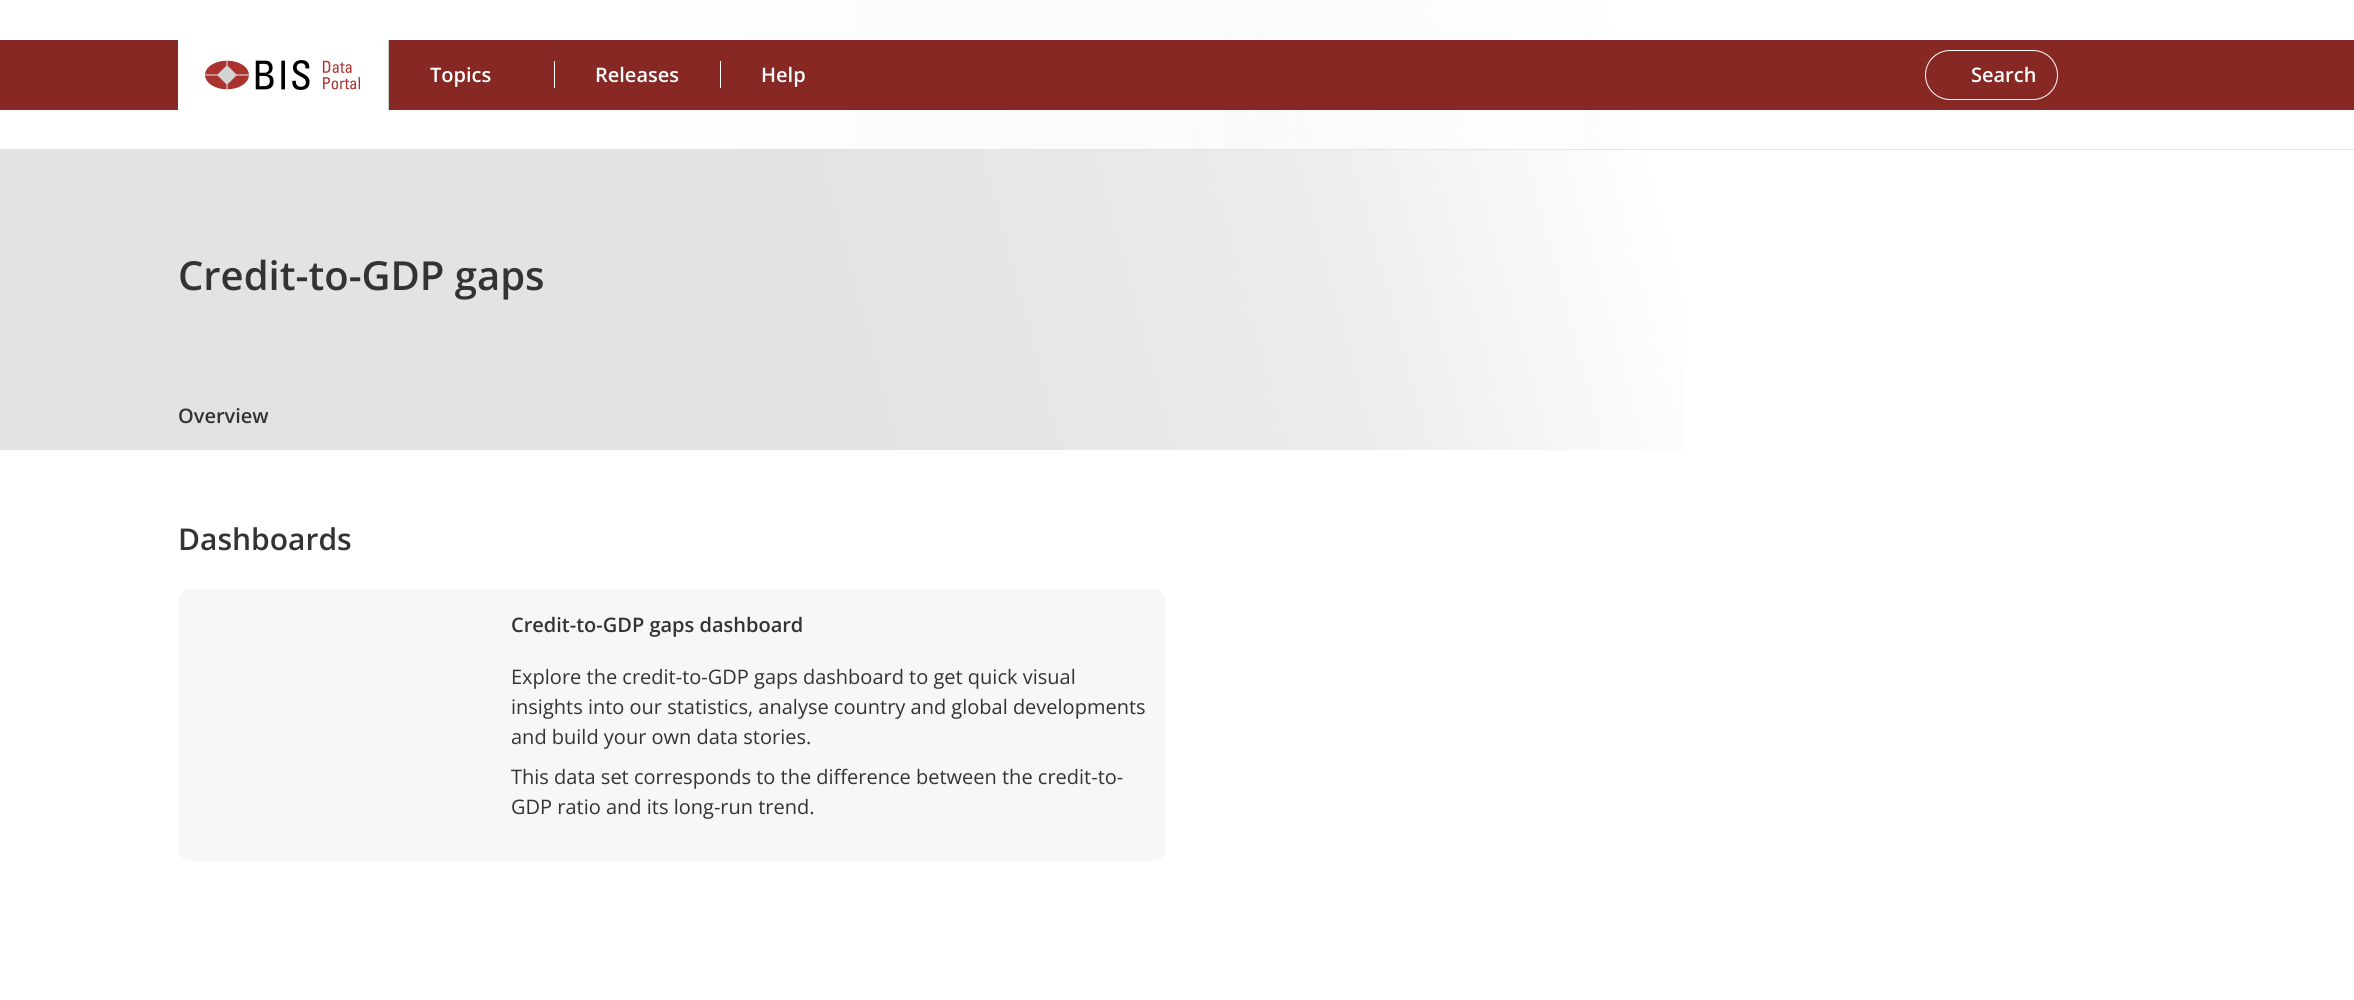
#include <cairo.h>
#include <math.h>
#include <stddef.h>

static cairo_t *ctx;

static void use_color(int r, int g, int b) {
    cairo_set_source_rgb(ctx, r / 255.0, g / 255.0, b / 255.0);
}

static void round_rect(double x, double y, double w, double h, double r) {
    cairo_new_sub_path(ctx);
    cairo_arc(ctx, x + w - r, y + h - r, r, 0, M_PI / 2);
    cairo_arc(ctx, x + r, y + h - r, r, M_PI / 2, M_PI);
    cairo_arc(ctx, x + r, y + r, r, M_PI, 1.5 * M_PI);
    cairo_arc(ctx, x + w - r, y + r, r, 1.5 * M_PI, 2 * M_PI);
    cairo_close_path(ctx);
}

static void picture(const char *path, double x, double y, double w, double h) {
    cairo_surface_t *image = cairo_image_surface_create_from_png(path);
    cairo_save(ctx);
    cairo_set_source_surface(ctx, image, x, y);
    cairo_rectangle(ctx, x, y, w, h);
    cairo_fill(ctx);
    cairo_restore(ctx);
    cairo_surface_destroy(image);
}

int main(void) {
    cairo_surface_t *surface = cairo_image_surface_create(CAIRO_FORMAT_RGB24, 2354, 1000);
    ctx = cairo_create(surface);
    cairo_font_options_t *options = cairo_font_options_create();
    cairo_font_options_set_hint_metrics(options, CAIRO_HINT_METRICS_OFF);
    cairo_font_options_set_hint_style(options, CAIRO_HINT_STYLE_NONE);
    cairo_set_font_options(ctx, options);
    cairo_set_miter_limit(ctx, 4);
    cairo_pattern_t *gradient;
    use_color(255, 255, 255);
    cairo_paint(ctx);
    gradient = cairo_pattern_create_linear(23, 534, 2332, -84);
    cairo_pattern_add_color_stop_rgba(gradient, 0.35, 0.89, 0.89, 0.89, 1);
    cairo_pattern_add_color_stop_rgba(gradient, 0.55, 0.925, 0.925, 0.925, 1);
    cairo_pattern_add_color_stop_rgba(gradient, 0.7, 1, 1, 1, 1);
    cairo_set_source(ctx, gradient);
    cairo_pattern_destroy(gradient);
    cairo_rectangle(ctx, 0, 0, 1684, 450);
    cairo_fill(ctx);
    gradient = cairo_pattern_create_linear(0, 74, 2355, 74);
    cairo_pattern_add_color_stop_rgba(gradient, 0.25, 1, 1, 1, 1);
    cairo_pattern_add_color_stop_rgba(gradient, 0.55, 1, 1, 1, 0.75);
    cairo_set_source(ctx, gradient);
    cairo_pattern_destroy(gradient);
    cairo_rectangle(ctx, 0, 0, 1584, 149);
    cairo_fill(ctx);
    use_color(229, 229, 229);
    cairo_rectangle(ctx, 1034, 149, 1320, 1);
    cairo_fill(ctx);
    use_color(136, 40, 37);
    cairo_rectangle(ctx, 0, 40, 2354, 70);
    cairo_fill(ctx);
    use_color(255, 255, 255);
    cairo_rectangle(ctx, 178, 40, 210, 70);
    cairo_fill(ctx);
    use_color(204, 204, 204);
    cairo_rectangle(ctx, 388, 40, 1, 70);
    cairo_fill(ctx);
    picture("img1.png", 205, 60, 155, 30);
    cairo_select_font_face(ctx, "Open Sans SemiBold", CAIRO_FONT_SLANT_NORMAL, CAIRO_FONT_WEIGHT_NORMAL);
    cairo_set_font_size(ctx, 20);
    use_color(255, 255, 255);
    cairo_move_to(ctx, 430, 82);
    cairo_show_text(ctx, "Topics");
    cairo_rectangle(ctx, 554, 61, 1, 27);
    cairo_fill(ctx);
    cairo_move_to(ctx, 595, 82);
    cairo_show_text(ctx, "Releases");
    cairo_rectangle(ctx, 720, 61, 1, 27);
    cairo_fill(ctx);
    cairo_move_to(ctx, 761, 82);
    cairo_show_text(ctx, "Help");
    round_rect(1925.5, 50.5, 132, 49, 24.5);
    cairo_set_line_width(ctx, 1);
    cairo_stroke(ctx);
    cairo_move_to(ctx, 1971, 82);
    cairo_show_text(ctx, "Search");
    cairo_set_font_size(ctx, 40);
    use_color(51, 51, 51);
    cairo_move_to(ctx, 178, 290);
    cairo_show_text(ctx, "Credit-to-GDP gaps");
    cairo_set_font_size(ctx, 20);
    cairo_move_to(ctx, 178, 423);
    cairo_show_text(ctx, "Overview");
    cairo_set_font_size(ctx, 30);
    cairo_move_to(ctx, 178, 550);
    cairo_show_text(ctx, "Dashboards");
    use_color(247, 247, 247);
    round_rect(178, 589, 988, 272, 13);
    cairo_fill(ctx);
    cairo_set_font_size(ctx, 20);
    use_color(51, 51, 51);
    cairo_move_to(ctx, 511, 632);
    cairo_show_text(ctx, "Credit-to-GDP gaps dashboard");
    cairo_select_font_face(ctx, "Open Sans", CAIRO_FONT_SLANT_NORMAL, CAIRO_FONT_WEIGHT_NORMAL);
    cairo_move_to(ctx, 511, 684);
    cairo_show_text(ctx, "Explore the credit-to-GDP gaps dashboard to get quick visual");
    cairo_move_to(ctx, 511, 714);
    cairo_show_text(ctx, "insights into our statistics, analyse country and global developments");
    cairo_move_to(ctx, 511, 744);
    cairo_show_text(ctx, "and build your own data stories.");
    cairo_move_to(ctx, 511, 784);
    cairo_show_text(ctx, "This data set corresponds to the difference between the credit-to-");
    cairo_move_to(ctx, 511, 814);
    cairo_show_text(ctx, "GDP ratio and its long-run trend.");
    cairo_surface_write_to_png(surface, "result.png");
    cairo_font_options_destroy(options);
    cairo_destroy(ctx);
    cairo_surface_destroy(surface);
    return 0;
}
